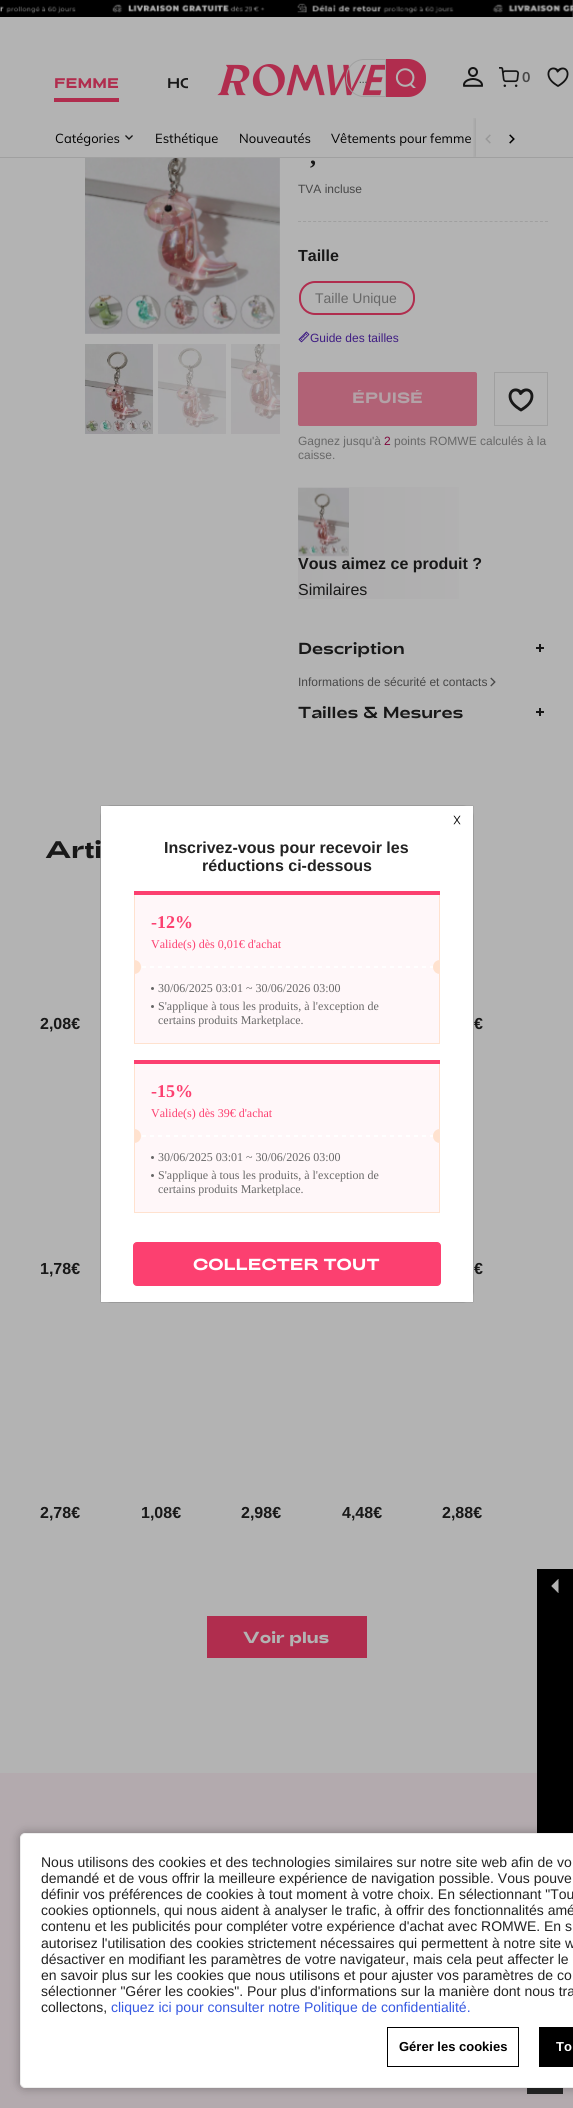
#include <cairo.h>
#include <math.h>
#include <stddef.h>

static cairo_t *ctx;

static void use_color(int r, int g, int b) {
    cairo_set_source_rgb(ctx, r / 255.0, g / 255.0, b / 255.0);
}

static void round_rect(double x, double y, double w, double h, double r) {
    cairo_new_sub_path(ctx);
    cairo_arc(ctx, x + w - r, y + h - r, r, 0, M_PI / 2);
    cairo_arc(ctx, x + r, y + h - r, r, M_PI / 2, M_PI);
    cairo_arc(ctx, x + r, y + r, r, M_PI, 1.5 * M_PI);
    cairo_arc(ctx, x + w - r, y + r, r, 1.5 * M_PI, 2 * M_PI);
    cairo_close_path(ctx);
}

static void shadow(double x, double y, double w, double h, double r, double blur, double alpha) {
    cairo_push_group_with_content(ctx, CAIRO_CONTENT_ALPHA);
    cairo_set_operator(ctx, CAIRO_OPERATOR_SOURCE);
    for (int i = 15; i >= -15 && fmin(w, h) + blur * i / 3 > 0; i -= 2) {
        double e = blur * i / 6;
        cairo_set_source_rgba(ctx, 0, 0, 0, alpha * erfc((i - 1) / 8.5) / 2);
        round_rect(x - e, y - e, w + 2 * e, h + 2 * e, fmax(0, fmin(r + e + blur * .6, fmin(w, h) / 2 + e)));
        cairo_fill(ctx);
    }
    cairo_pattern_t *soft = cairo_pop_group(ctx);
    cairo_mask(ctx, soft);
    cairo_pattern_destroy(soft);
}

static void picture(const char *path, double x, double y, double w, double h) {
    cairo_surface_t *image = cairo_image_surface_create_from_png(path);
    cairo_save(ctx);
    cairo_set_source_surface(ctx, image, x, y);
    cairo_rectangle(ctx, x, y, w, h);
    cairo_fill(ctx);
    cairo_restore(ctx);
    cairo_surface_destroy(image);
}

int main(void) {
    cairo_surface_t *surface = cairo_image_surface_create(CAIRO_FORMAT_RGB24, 573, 2108);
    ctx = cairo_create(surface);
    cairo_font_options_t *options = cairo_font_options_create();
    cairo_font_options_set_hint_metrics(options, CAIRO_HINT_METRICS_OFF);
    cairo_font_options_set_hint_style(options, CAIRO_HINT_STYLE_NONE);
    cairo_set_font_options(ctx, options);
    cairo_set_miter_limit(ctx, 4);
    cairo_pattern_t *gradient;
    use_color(179, 179, 179);
    cairo_paint(ctx);
    use_color(173, 173, 173);
    cairo_rectangle(ctx, 85, 158, 195, 176);
    cairo_fill(ctx);
    picture("img1.png", 0, 0, 573, 17);
    cairo_select_font_face(ctx, "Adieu", CAIRO_FONT_SLANT_NORMAL, CAIRO_FONT_WEIGHT_BOLD);
    cairo_set_font_size(ctx, 14);
    use_color(176, 45, 78);
    cairo_move_to(ctx, 54, 88);
    cairo_show_text(ctx, "FEMME");
    cairo_rectangle(ctx, 54, 98, 65, 4);
    cairo_fill(ctx);
    cairo_select_font_face(ctx, "Adieu", CAIRO_FONT_SLANT_NORMAL, CAIRO_FONT_WEIGHT_NORMAL);
    use_color(24, 24, 24);
    cairo_move_to(ctx, 167, 88);
    cairo_show_text(ctx, "HO");
    use_color(179, 179, 179);
    cairo_rectangle(ctx, 188, 78, 5, 11);
    cairo_fill(ctx);
    picture("img2.png", 217, 64, 168, 32);
    picture("img3.png", 463, 67, 20, 20);
    picture("img4.png", 499, 67, 20, 20);
    cairo_select_font_face(ctx, "Muli", CAIRO_FONT_SLANT_NORMAL, CAIRO_FONT_WEIGHT_BOLD);
    use_color(71, 71, 71);
    cairo_move_to(ctx, 522, 82);
    cairo_show_text(ctx, "0");
    picture("img5.png", 547, 67, 22, 20);
    cairo_new_path(ctx);
    cairo_move_to(ctx, 364, 59.5);
    cairo_line_to(ctx, 385.5, 59.5);
    cairo_line_to(ctx, 385.5, 96.5);
    cairo_line_to(ctx, 364, 96.5);
    cairo_curve_to(ctx, 354.5, 96.5, 346.5, 88.5, 346.5, 79);
    cairo_line_to(ctx, 346.5, 77);
    cairo_curve_to(ctx, 346.5, 67.5, 354.5, 59.5, 364, 59.5);
    cairo_close_path(ctx);
    use_color(160, 160, 160);
    cairo_set_line_width(ctx, 1);
    cairo_stroke(ctx);
    cairo_select_font_face(ctx, "Muli", CAIRO_FONT_SLANT_NORMAL, CAIRO_FONT_WEIGHT_NORMAL);
    cairo_set_font_size(ctx, 12);
    use_color(83, 83, 83);
    cairo_move_to(ctx, 359, 83);
    cairo_show_text(ctx, "…");
    use_color(176, 45, 78);
    cairo_new_path(ctx);
    cairo_move_to(ctx, 386, 59);
    cairo_line_to(ctx, 408, 59);
    cairo_curve_to(ctx, 418, 59, 426, 67, 426, 77);
    cairo_line_to(ctx, 426, 79);
    cairo_curve_to(ctx, 426, 89, 418, 97, 408, 97);
    cairo_line_to(ctx, 386, 97);
    cairo_close_path(ctx);
    cairo_fill(ctx);
    picture("img6.png", 395, 68, 21, 20);
    use_color(160, 160, 160);
    cairo_rectangle(ctx, 0, 157, 573, 1);
    cairo_fill(ctx);
    cairo_set_font_size(ctx, 13);
    use_color(0, 0, 0);
    cairo_move_to(ctx, 55, 143);
    cairo_show_text(ctx, "Catégories");
    picture("img7.png", 125, 135, 8, 5);
    cairo_move_to(ctx, 155, 143);
    cairo_show_text(ctx, "Esthétique");
    cairo_move_to(ctx, 239, 143);
    cairo_show_text(ctx, "Nouveautés");
    cairo_move_to(ctx, 331, 143);
    cairo_show_text(ctx, "Vêtements pour femme");
    cairo_save(ctx);
    cairo_rectangle(ctx, 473, 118, 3, 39);
    cairo_clip(ctx);
    use_color(0, 0, 0);
    shadow(474, 118, 50, 39, 0, 1.5, 0.08);
    cairo_restore(ctx);
    picture("img8.png", 485, 134, 6, 10);
    picture("img9.png", 509, 134, 6, 10);
    picture("img10.png", 85, 158, 195, 176);
    picture("img11.png", 85, 344, 68, 90);
    use_color(176, 176, 176);
    cairo_rectangle(ctx, 158, 344, 68, 90);
    cairo_fill(ctx);
    picture("img12.png", 158, 344, 68, 90);
    cairo_rectangle(ctx, 231, 344, 49, 90);
    cairo_fill(ctx);
    picture("img13.png", 231, 344, 49, 90);
    cairo_select_font_face(ctx, "Liberation Serif", CAIRO_FONT_SLANT_NORMAL, CAIRO_FONT_WEIGHT_BOLD);
    cairo_set_font_size(ctx, 24);
    use_color(24, 24, 24);
    cairo_move_to(ctx, 310, 164);
    cairo_show_text(ctx, ",");
    cairo_select_font_face(ctx, "Liberation Sans", CAIRO_FONT_SLANT_NORMAL, CAIRO_FONT_WEIGHT_NORMAL);
    cairo_set_font_size(ctx, 12);
    use_color(71, 71, 71);
    cairo_move_to(ctx, 298, 193);
    cairo_show_text(ctx, "TVA incluse");
    cairo_new_path(ctx);
    cairo_move_to(ctx, 298, 221.5);
    cairo_line_to(ctx, 548, 221.5);
    use_color(160, 160, 160);
    cairo_set_dash(ctx, (double[]){3, 2.04}, 2, 0);
    cairo_stroke(ctx);
    cairo_select_font_face(ctx, "Liberation Sans", CAIRO_FONT_SLANT_NORMAL, CAIRO_FONT_WEIGHT_BOLD);
    cairo_set_font_size(ctx, 16);
    use_color(24, 24, 24);
    cairo_move_to(ctx, 298, 261);
    cairo_show_text(ctx, "Taille");
    round_rect(300, 282, 114, 32, 15);
    use_color(176, 45, 78);
    cairo_set_line_width(ctx, 2);
    cairo_set_dash(ctx, NULL, 0, 0);
    cairo_stroke(ctx);
    cairo_select_font_face(ctx, "Liberation Sans", CAIRO_FONT_SLANT_NORMAL, CAIRO_FONT_WEIGHT_NORMAL);
    cairo_set_font_size(ctx, 14);
    use_color(104, 104, 104);
    cairo_move_to(ctx, 315, 303);
    cairo_show_text(ctx, "Taille Unique");
    picture("img14.png", 298, 331, 12, 12);
    cairo_set_font_size(ctx, 12);
    use_color(63, 29, 131);
    cairo_move_to(ctx, 310, 342);
    cairo_show_text(ctx, "Guide des tailles");
    use_color(177, 98, 118);
    round_rect(298, 372, 179, 54, 2);
    cairo_fill(ctx);
    cairo_save(ctx);
    cairo_rectangle(ctx, 329, 390, 117, 15);
    cairo_clip(ctx);
    cairo_select_font_face(ctx, "Adieu", CAIRO_FONT_SLANT_NORMAL, CAIRO_FONT_WEIGHT_BOLD);
    cairo_set_font_size(ctx, 15);
    use_color(179, 162, 167);
    cairo_move_to(ctx, 352, 403);
    cairo_show_text(ctx, "ÉPUISÉ");
    cairo_restore(ctx);
    cairo_rectangle(ctx, 494.5, 372.5, 53, 53);
    use_color(160, 160, 160);
    cairo_set_line_width(ctx, 1);
    cairo_stroke(ctx);
    picture("img15.png", 508, 388, 26, 24);
    use_color(104, 104, 104);
    cairo_move_to(ctx, 298, 445);
    cairo_show_text(ctx, "Gagnez jusqu'à");
    use_color(126, 6, 59);
    cairo_move_to(ctx, 384, 445);
    cairo_show_text(ctx, "2");
    use_color(104, 104, 104);
    cairo_move_to(ctx, 394, 445);
    cairo_show_text(ctx, "points ROMWE calculés à la");
    cairo_move_to(ctx, 298, 459);
    cairo_show_text(ctx, "caisse.");
    gradient = cairo_pattern_create_linear(548, 543, 298, 543);
    cairo_pattern_add_color_stop_rgba(gradient, 0, 0.702, 0.702, 0.702, 1);
    cairo_pattern_add_color_stop_rgba(gradient, 1, 0.678, 0.675, 0.678, 1);
    cairo_set_source(ctx, gradient);
    cairo_pattern_destroy(gradient);
    cairo_rectangle(ctx, 298, 487, 161, 112);
    cairo_fill(ctx);
    picture("img16.png", 298, 488, 51, 69);
    cairo_select_font_face(ctx, "Liberation Sans", CAIRO_FONT_SLANT_NORMAL, CAIRO_FONT_WEIGHT_BOLD);
    cairo_set_font_size(ctx, 16);
    use_color(24, 24, 24);
    cairo_move_to(ctx, 298, 569);
    cairo_show_text(ctx, "Vous aimez ce produit ?");
    cairo_select_font_face(ctx, "Liberation Sans", CAIRO_FONT_SLANT_NORMAL, CAIRO_FONT_WEIGHT_NORMAL);
    cairo_move_to(ctx, 298, 595);
    cairo_show_text(ctx, "Similaires");
    cairo_select_font_face(ctx, "Adieu", CAIRO_FONT_SLANT_NORMAL, CAIRO_FONT_WEIGHT_NORMAL);
    cairo_move_to(ctx, 298, 654);
    cairo_show_text(ctx, "Description");
    picture("img17.png", 536, 644, 8, 8);
    cairo_select_font_face(ctx, "Liberation Sans", CAIRO_FONT_SLANT_NORMAL, CAIRO_FONT_WEIGHT_NORMAL);
    cairo_set_font_size(ctx, 12);
    use_color(71, 71, 71);
    cairo_move_to(ctx, 298, 686);
    cairo_show_text(ctx, "Informations de sécurité et contacts");
    picture("img18.png", 490, 677, 6, 10);
    cairo_select_font_face(ctx, "Adieu", CAIRO_FONT_SLANT_NORMAL, CAIRO_FONT_WEIGHT_NORMAL);
    cairo_set_font_size(ctx, 16);
    use_color(24, 24, 24);
    cairo_move_to(ctx, 298, 718);
    cairo_show_text(ctx, "Tailles & Mesures");
    picture("img17.png", 536, 708, 8, 8);
    cairo_select_font_face(ctx, "Adieu", CAIRO_FONT_SLANT_NORMAL, CAIRO_FONT_WEIGHT_BOLD);
    cairo_set_font_size(ctx, 24);
    cairo_move_to(ctx, 45, 858);
    cairo_show_text(ctx, "Arti");
    cairo_select_font_face(ctx, "Liberation Sans", CAIRO_FONT_SLANT_NORMAL, CAIRO_FONT_WEIGHT_BOLD);
    cairo_set_font_size(ctx, 16);
    cairo_move_to(ctx, 40, 1029);
    cairo_show_text(ctx, "2,08€");
    cairo_move_to(ctx, 474, 1029);
    cairo_show_text(ctx, "€");
    cairo_move_to(ctx, 40, 1274);
    cairo_show_text(ctx, "1,78€");
    cairo_move_to(ctx, 474, 1274);
    cairo_show_text(ctx, "€");
    cairo_move_to(ctx, 40, 1518);
    cairo_show_text(ctx, "2,78€");
    cairo_move_to(ctx, 141, 1518);
    cairo_show_text(ctx, "1,08€");
    cairo_move_to(ctx, 241, 1518);
    cairo_show_text(ctx, "2,98€");
    cairo_move_to(ctx, 342, 1518);
    cairo_show_text(ctx, "4,48€");
    cairo_move_to(ctx, 442, 1518);
    cairo_show_text(ctx, "2,88€");
    use_color(176, 45, 78);
    cairo_rectangle(ctx, 207, 1616, 160, 42);
    cairo_fill(ctx);
    cairo_select_font_face(ctx, "Adieu", CAIRO_FONT_SLANT_NORMAL, CAIRO_FONT_WEIGHT_BOLD);
    use_color(179, 179, 179);
    cairo_move_to(ctx, 243, 1643);
    cairo_show_text(ctx, "Voir plus");
    use_color(0, 0, 0);
    shadow(101, 806, 372, 496, 10, 0.5, 0.3);
    shadow(101, 806, 372, 496, 0, 0.5, 0.3);
    use_color(255, 255, 255);
    cairo_rectangle(ctx, 101, 806, 372, 496);
    cairo_fill(ctx);
    picture("img19.png", 453, 815, 8, 10);
    cairo_select_font_face(ctx, "Liberation Sans", CAIRO_FONT_SLANT_NORMAL, CAIRO_FONT_WEIGHT_BOLD);
    use_color(34, 34, 34);
    cairo_move_to(ctx, 164, 853);
    cairo_show_text(ctx, "Inscrivez-vous pour recevoir les");
    cairo_move_to(ctx, 202, 871);
    cairo_show_text(ctx, "réductions ci-dessous");
    use_color(255, 247, 249);
    cairo_rectangle(ctx, 134, 895, 306, 148);
    cairo_fill(ctx);
    use_color(255, 226, 207);
    cairo_rectangle(ctx, 439, 891, 1, 69);
    cairo_fill(ctx);
    cairo_rectangle(ctx, 134, 891, 1, 69);
    cairo_fill(ctx);
    use_color(252, 64, 112);
    cairo_rectangle(ctx, 134, 891, 306, 4);
    cairo_fill(ctx);
    cairo_select_font_face(ctx, "Liberation Serif", CAIRO_FONT_SLANT_NORMAL, CAIRO_FONT_WEIGHT_BOLD);
    cairo_set_font_size(ctx, 18);
    cairo_move_to(ctx, 151, 928);
    cairo_show_text(ctx, "-12%");
    cairo_select_font_face(ctx, "Liberation Serif", CAIRO_FONT_SLANT_NORMAL, CAIRO_FONT_WEIGHT_NORMAL);
    cairo_set_font_size(ctx, 12);
    cairo_move_to(ctx, 151, 948);
    cairo_show_text(ctx, "Valide(s) dès 0,01€ d'achat");
    use_color(255, 226, 207);
    cairo_new_path(ctx);
    cairo_move_to(ctx, 134, 960);
    cairo_curve_to(ctx, 138, 960, 141, 963, 141, 967);
    cairo_curve_to(ctx, 141, 971, 138, 974, 134, 974);
    cairo_close_path(ctx);
    cairo_fill(ctx);
    picture("img20.png", 142, 966, 292, 2);
    cairo_new_path(ctx);
    cairo_move_to(ctx, 440, 960);
    cairo_line_to(ctx, 440, 974);
    cairo_curve_to(ctx, 436, 974, 433, 971, 433, 967);
    cairo_curve_to(ctx, 433, 963, 436, 960, 440, 960);
    cairo_close_path(ctx);
    cairo_fill(ctx);
    cairo_rectangle(ctx, 439, 974, 1, 70);
    cairo_fill(ctx);
    cairo_rectangle(ctx, 134, 1043, 306, 1);
    cairo_fill(ctx);
    cairo_rectangle(ctx, 134, 974, 1, 70);
    cairo_fill(ctx);
    use_color(102, 102, 102);
    cairo_arc(ctx, 152.5, 988.5, 1.5, 0, 2 * M_PI);
    cairo_fill(ctx);
    use_color(104, 104, 104);
    cairo_move_to(ctx, 158, 992);
    cairo_show_text(ctx, "30/06/2025 03:01 ~ 30/06/2026 03:00");
    use_color(102, 102, 102);
    cairo_new_path(ctx);
    cairo_arc(ctx, 152.5, 1006.5, 1.5, 0, 2 * M_PI);
    cairo_fill(ctx);
    use_color(104, 104, 104);
    cairo_move_to(ctx, 158, 1010);
    cairo_show_text(ctx, "S'applique à tous les produits, à l'exception de");
    cairo_move_to(ctx, 158, 1024);
    cairo_show_text(ctx, "certains produits Marketplace.");
    use_color(255, 247, 249);
    cairo_rectangle(ctx, 134, 1064, 306, 148);
    cairo_fill(ctx);
    use_color(255, 226, 207);
    cairo_rectangle(ctx, 439, 1060, 1, 69);
    cairo_fill(ctx);
    cairo_rectangle(ctx, 134, 1060, 1, 69);
    cairo_fill(ctx);
    use_color(252, 64, 112);
    cairo_rectangle(ctx, 134, 1060, 306, 4);
    cairo_fill(ctx);
    cairo_select_font_face(ctx, "Liberation Serif", CAIRO_FONT_SLANT_NORMAL, CAIRO_FONT_WEIGHT_BOLD);
    cairo_set_font_size(ctx, 18);
    cairo_move_to(ctx, 151, 1097);
    cairo_show_text(ctx, "-15%");
    cairo_select_font_face(ctx, "Liberation Serif", CAIRO_FONT_SLANT_NORMAL, CAIRO_FONT_WEIGHT_NORMAL);
    cairo_set_font_size(ctx, 12);
    cairo_move_to(ctx, 151, 1117);
    cairo_show_text(ctx, "Valide(s) dès 39€ d'achat");
    use_color(255, 226, 207);
    cairo_new_path(ctx);
    cairo_move_to(ctx, 134, 1129);
    cairo_curve_to(ctx, 138, 1129, 141, 1132, 141, 1136);
    cairo_curve_to(ctx, 141, 1140, 138, 1143, 134, 1143);
    cairo_close_path(ctx);
    cairo_fill(ctx);
    picture("img20.png", 142, 1135, 292, 2);
    cairo_new_path(ctx);
    cairo_move_to(ctx, 440, 1129);
    cairo_line_to(ctx, 440, 1143);
    cairo_curve_to(ctx, 436, 1143, 433, 1140, 433, 1136);
    cairo_curve_to(ctx, 433, 1132, 436, 1129, 440, 1129);
    cairo_close_path(ctx);
    cairo_fill(ctx);
    cairo_rectangle(ctx, 439, 1143, 1, 70);
    cairo_fill(ctx);
    cairo_rectangle(ctx, 134, 1212, 306, 1);
    cairo_fill(ctx);
    cairo_rectangle(ctx, 134, 1143, 1, 70);
    cairo_fill(ctx);
    use_color(102, 102, 102);
    cairo_arc(ctx, 152.5, 1157.5, 1.5, 0, 2 * M_PI);
    cairo_fill(ctx);
    use_color(104, 104, 104);
    cairo_move_to(ctx, 158, 1161);
    cairo_show_text(ctx, "30/06/2025 03:01 ~ 30/06/2026 03:00");
    use_color(102, 102, 102);
    cairo_new_path(ctx);
    cairo_arc(ctx, 152.5, 1175.5, 1.5, 0, 2 * M_PI);
    cairo_fill(ctx);
    use_color(104, 104, 104);
    cairo_move_to(ctx, 158, 1179);
    cairo_show_text(ctx, "S'applique à tous les produits, à l'exception de");
    cairo_move_to(ctx, 158, 1193);
    cairo_show_text(ctx, "certains produits Marketplace.");
    use_color(252, 64, 112);
    round_rect(133.5, 1242.5, 307, 43, 3.5);
    cairo_fill_preserve(ctx);
    cairo_stroke(ctx);
    cairo_select_font_face(ctx, "Adieu", CAIRO_FONT_SLANT_NORMAL, CAIRO_FONT_WEIGHT_BOLD);
    cairo_set_font_size(ctx, 16);
    use_color(255, 255, 255);
    cairo_move_to(ctx, 193, 1270);
    cairo_show_text(ctx, "COLLECTER TOUT");
    use_color(179, 170, 174);
    cairo_rectangle(ctx, 0, 1773, 573, 335);
    cairo_fill(ctx);
    use_color(36, 36, 36);
    cairo_rectangle(ctx, 527, 2088, 36, 6);
    cairo_fill(ctx);
    use_color(0, 0, 0);
    cairo_rectangle(ctx, 537, 1569, 36, 264);
    cairo_fill(ctx);
    picture("img21.png", 551, 1579, 8, 14);
    use_color(0, 0, 0);
    shadow(20, 1833, 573, 255, 5, 5, 0.3);
    use_color(255, 255, 255);
    round_rect(20.5, 1833.5, 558, 254, 4.5);
    cairo_fill_preserve(ctx);
    use_color(238, 238, 238);
    cairo_stroke(ctx);
    cairo_select_font_face(ctx, "Liberation Sans", CAIRO_FONT_SLANT_NORMAL, CAIRO_FONT_WEIGHT_NORMAL);
    cairo_set_font_size(ctx, 14);
    use_color(34, 34, 34);
    cairo_move_to(ctx, 41, 1867);
    cairo_show_text(ctx, "Nous utilisons des cookies et des technologies similaires sur notre site web afin de vo");
    cairo_move_to(ctx, 41, 1883);
    cairo_show_text(ctx, "demandé et de vous offrir la meilleure expérience de navigation possible. Vous pouve");
    cairo_move_to(ctx, 41, 1899);
    cairo_show_text(ctx, "définir vos préférences de cookies à tout moment à votre choix. En sélectionnant \"Tou");
    cairo_move_to(ctx, 41, 1915);
    cairo_show_text(ctx, "cookies optionnels, qui nous aident à analyser le trafic, à offrir des fonctionnalités amé");
    cairo_move_to(ctx, 41, 1931);
    cairo_show_text(ctx, "contenu et les publicités pour compléter votre expérience d'achat avec ROMWE. En s");
    cairo_move_to(ctx, 41, 1948);
    cairo_show_text(ctx, "autorisez l'utilisation des cookies strictement nécessaires qui permettent à notre site w");
    cairo_move_to(ctx, 41, 1964);
    cairo_show_text(ctx, "désactiver en modifiant les paramètres de votre navigateur, mais cela peut affecter le");
    cairo_move_to(ctx, 41, 1980);
    cairo_show_text(ctx, "en savoir plus sur les cookies que nous utilisons et pour ajuster vos paramètres de co");
    cairo_move_to(ctx, 41, 1996);
    cairo_show_text(ctx, "sélectionner \"Gérer les cookies\". Pour plus d'informations sur la manière dont nous tra");
    cairo_move_to(ctx, 41, 2012);
    cairo_show_text(ctx, "collectons,");
    use_color(54, 88, 226);
    cairo_move_to(ctx, 111, 2012);
    cairo_show_text(ctx, "cliquez ici pour consulter notre Politique de confidentialité.");
    cairo_rectangle(ctx, 387.5, 2027.5, 131, 39);
    use_color(0, 0, 0);
    cairo_stroke(ctx);
    cairo_select_font_face(ctx, "Liberation Sans", CAIRO_FONT_SLANT_NORMAL, CAIRO_FONT_WEIGHT_BOLD);
    cairo_set_font_size(ctx, 13);
    cairo_move_to(ctx, 399, 2051);
    cairo_show_text(ctx, "Gérer les cookies");
    cairo_rectangle(ctx, 539, 2027, 34, 40);
    cairo_fill(ctx);
    use_color(255, 255, 255);
    cairo_move_to(ctx, 556, 2051);
    cairo_show_text(ctx, "To");
    cairo_surface_write_to_png(surface, "result.png");
    cairo_font_options_destroy(options);
    cairo_destroy(ctx);
    cairo_surface_destroy(surface);
    return 0;
}
